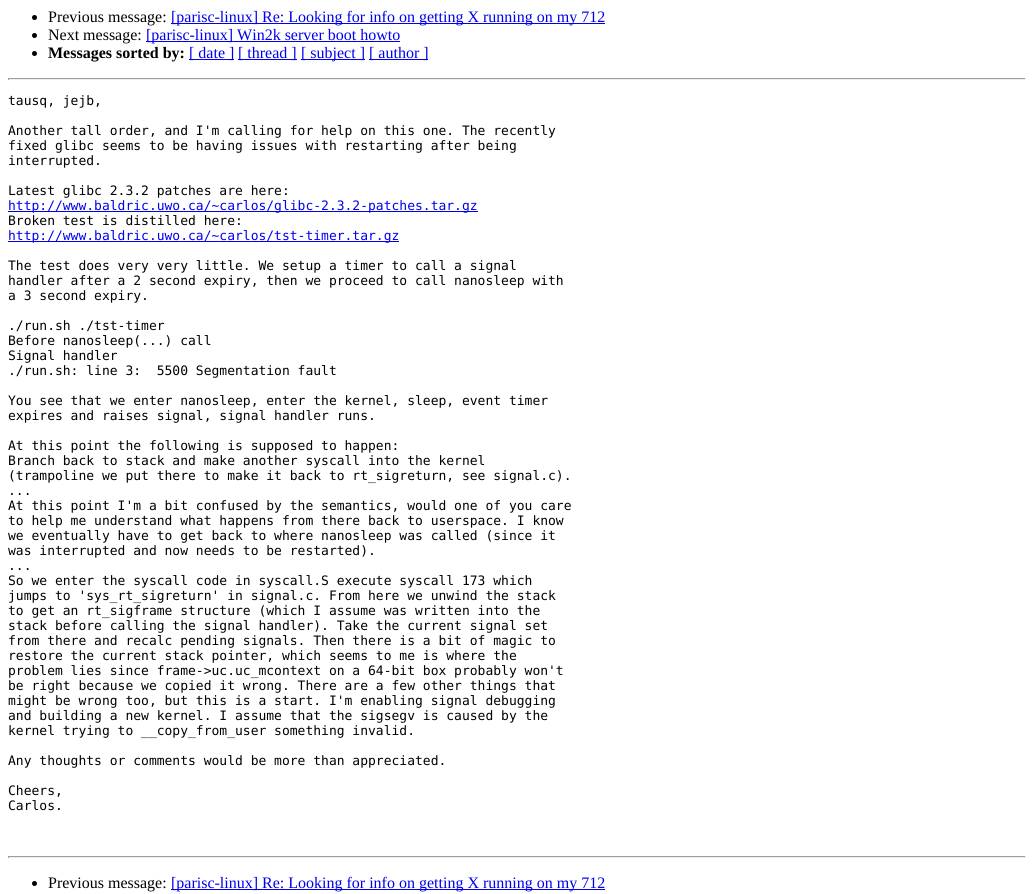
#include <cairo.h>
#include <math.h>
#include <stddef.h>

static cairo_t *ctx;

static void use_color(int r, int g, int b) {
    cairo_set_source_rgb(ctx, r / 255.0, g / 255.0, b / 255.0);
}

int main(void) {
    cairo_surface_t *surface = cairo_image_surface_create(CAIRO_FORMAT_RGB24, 1034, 894);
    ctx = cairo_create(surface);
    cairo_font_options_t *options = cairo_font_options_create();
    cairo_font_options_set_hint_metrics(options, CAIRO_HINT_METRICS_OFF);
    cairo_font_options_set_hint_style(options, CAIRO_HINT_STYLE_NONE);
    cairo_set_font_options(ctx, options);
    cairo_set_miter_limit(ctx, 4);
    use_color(255, 255, 255);
    cairo_paint(ctx);
    use_color(0, 0, 0);
    cairo_arc(ctx, 34.5, 17.5, 2.5, 0, 2 * M_PI);
    cairo_fill(ctx);
    cairo_select_font_face(ctx, "Liberation Serif", CAIRO_FONT_SLANT_NORMAL, CAIRO_FONT_WEIGHT_NORMAL);
    cairo_set_font_size(ctx, 16);
    cairo_move_to(ctx, 48, 22);
    cairo_show_text(ctx, "Previous message:");
    use_color(0, 0, 238);
    cairo_rectangle(ctx, 171, 23, 434, 1);
    cairo_fill(ctx);
    cairo_move_to(ctx, 171, 22);
    cairo_show_text(ctx, "[parisc-linux] Re: Looking for info on getting X running on my 712");
    use_color(0, 0, 0);
    cairo_new_path(ctx);
    cairo_arc(ctx, 34.5, 35.5, 2.5, 0, 2 * M_PI);
    cairo_fill(ctx);
    cairo_move_to(ctx, 48, 40);
    cairo_show_text(ctx, "Next message:");
    use_color(0, 0, 238);
    cairo_rectangle(ctx, 146, 41, 254, 1);
    cairo_fill(ctx);
    cairo_move_to(ctx, 146, 40);
    cairo_show_text(ctx, "[parisc-linux] Win2k server boot howto");
    use_color(0, 0, 0);
    cairo_new_path(ctx);
    cairo_arc(ctx, 34.5, 53.5, 2.5, 0, 2 * M_PI);
    cairo_fill(ctx);
    cairo_select_font_face(ctx, "Liberation Serif", CAIRO_FONT_SLANT_NORMAL, CAIRO_FONT_WEIGHT_BOLD);
    cairo_move_to(ctx, 48, 58);
    cairo_show_text(ctx, "Messages sorted by:");
    use_color(0, 0, 238);
    cairo_rectangle(ctx, 189, 59, 45, 1);
    cairo_fill(ctx);
    cairo_select_font_face(ctx, "Liberation Serif", CAIRO_FONT_SLANT_NORMAL, CAIRO_FONT_WEIGHT_NORMAL);
    cairo_move_to(ctx, 189, 58);
    cairo_show_text(ctx, "[ date ]");
    cairo_rectangle(ctx, 238, 59, 59, 1);
    cairo_fill(ctx);
    cairo_move_to(ctx, 238, 58);
    cairo_show_text(ctx, "[ thread ]");
    cairo_rectangle(ctx, 301, 59, 64, 1);
    cairo_fill(ctx);
    cairo_move_to(ctx, 301, 58);
    cairo_show_text(ctx, "[ subject ]");
    cairo_rectangle(ctx, 369, 59, 59, 1);
    cairo_fill(ctx);
    cairo_move_to(ctx, 369, 58);
    cairo_show_text(ctx, "[ author ]");
    use_color(159, 159, 159);
    cairo_rectangle(ctx, 8, 78, 1018, 1);
    cairo_fill(ctx);
    use_color(238, 238, 238);
    cairo_rectangle(ctx, 1025, 78, 1, 2);
    cairo_fill(ctx);
    cairo_rectangle(ctx, 8, 79, 1018, 1);
    cairo_fill(ctx);
    use_color(159, 159, 159);
    cairo_rectangle(ctx, 8, 78, 1, 2);
    cairo_fill(ctx);
    cairo_select_font_face(ctx, "DejaVu Sans Mono", CAIRO_FONT_SLANT_NORMAL, CAIRO_FONT_WEIGHT_NORMAL);
    cairo_set_font_size(ctx, 13);
    use_color(0, 0, 0);
    cairo_move_to(ctx, 8, 105);
    cairo_show_text(ctx, "tausq, jejb,");
    cairo_move_to(ctx, 8, 135);
    cairo_show_text(ctx, "Another tall order, and I'm calling for help on this one. The recently");
    cairo_move_to(ctx, 8, 150);
    cairo_show_text(ctx, "fixed glibc seems to be having issues with restarting after being");
    cairo_move_to(ctx, 8, 165);
    cairo_show_text(ctx, "interrupted.");
    cairo_move_to(ctx, 8, 195);
    cairo_show_text(ctx, "Latest glibc 2.3.2 patches are here:");
    use_color(0, 0, 238);
    cairo_rectangle(ctx, 8, 211, 470, 1);
    cairo_fill(ctx);
    cairo_move_to(ctx, 8, 210);
    cairo_show_text(ctx, "http://www.baldric.uwo.ca/~carlos/glibc-2.3.2-patches.tar.gz");
    use_color(0, 0, 0);
    cairo_move_to(ctx, 8, 225);
    cairo_show_text(ctx, "Broken test is distilled here:");
    use_color(0, 0, 238);
    cairo_rectangle(ctx, 8, 241, 391, 1);
    cairo_fill(ctx);
    cairo_move_to(ctx, 8, 240);
    cairo_show_text(ctx, "http://www.baldric.uwo.ca/~carlos/tst-timer.tar.gz");
    use_color(0, 0, 0);
    cairo_move_to(ctx, 8, 270);
    cairo_show_text(ctx, "The test does very very little. We setup a timer to call a signal");
    cairo_move_to(ctx, 8, 285);
    cairo_show_text(ctx, "handler after a 2 second expiry, then we proceed to call nanosleep with");
    cairo_move_to(ctx, 8, 300);
    cairo_show_text(ctx, "a 3 second expiry.");
    cairo_move_to(ctx, 8, 330);
    cairo_show_text(ctx, "./run.sh ./tst-timer");
    cairo_move_to(ctx, 8, 345);
    cairo_show_text(ctx, "Before nanosleep(...) call");
    cairo_move_to(ctx, 8, 360);
    cairo_show_text(ctx, "Signal handler");
    cairo_move_to(ctx, 8, 375);
    cairo_show_text(ctx, "./run.sh: line 3:  5500 Segmentation fault");
    cairo_move_to(ctx, 8, 405);
    cairo_show_text(ctx, "You see that we enter nanosleep, enter the kernel, sleep, event timer");
    cairo_move_to(ctx, 8, 420);
    cairo_show_text(ctx, "expires and raises signal, signal handler runs.");
    cairo_move_to(ctx, 8, 450);
    cairo_show_text(ctx, "At this point the following is supposed to happen:");
    cairo_move_to(ctx, 8, 465);
    cairo_show_text(ctx, "Branch back to stack and make another syscall into the kernel");
    cairo_move_to(ctx, 8, 480);
    cairo_show_text(ctx, "(trampoline we put there to make it back to rt_sigreturn, see signal.c).");
    cairo_move_to(ctx, 8, 495);
    cairo_show_text(ctx, "...");
    cairo_move_to(ctx, 8, 510);
    cairo_show_text(ctx, "At this point I'm a bit confused by the semantics, would one of you care");
    cairo_move_to(ctx, 8, 525);
    cairo_show_text(ctx, "to help me understand what happens from there back to userspace. I know");
    cairo_move_to(ctx, 8, 540);
    cairo_show_text(ctx, "we eventually have to get back to where nanosleep was called (since it");
    cairo_move_to(ctx, 8, 555);
    cairo_show_text(ctx, "was interrupted and now needs to be restarted).");
    cairo_move_to(ctx, 8, 570);
    cairo_show_text(ctx, "...");
    cairo_move_to(ctx, 8, 585);
    cairo_show_text(ctx, "So we enter the syscall code in syscall.S execute syscall 173 which");
    cairo_move_to(ctx, 8, 600);
    cairo_show_text(ctx, "jumps to 'sys_rt_sigreturn' in signal.c. From here we unwind the stack");
    cairo_move_to(ctx, 8, 615);
    cairo_show_text(ctx, "to get an rt_sigframe structure (which I assume was written into the");
    cairo_move_to(ctx, 8, 630);
    cairo_show_text(ctx, "stack before calling the signal handler). Take the current signal set");
    cairo_move_to(ctx, 8, 645);
    cairo_show_text(ctx, "from there and recalc pending signals. Then there is a bit of magic to");
    cairo_move_to(ctx, 8, 660);
    cairo_show_text(ctx, "restore the current stack pointer, which seems to me is where the");
    cairo_move_to(ctx, 8, 675);
    cairo_show_text(ctx, "problem lies since frame->uc.uc_mcontext on a 64-bit box probably won't");
    cairo_move_to(ctx, 8, 690);
    cairo_show_text(ctx, "be right because we copied it wrong. There are a few other things that");
    cairo_move_to(ctx, 8, 705);
    cairo_show_text(ctx, "might be wrong too, but this is a start. I'm enabling signal debugging");
    cairo_move_to(ctx, 8, 720);
    cairo_show_text(ctx, "and building a new kernel. I assume that the sigsegv is caused by the");
    cairo_move_to(ctx, 8, 735);
    cairo_show_text(ctx, "kernel trying to __copy_from_user something invalid.");
    cairo_move_to(ctx, 8, 765);
    cairo_show_text(ctx, "Any thoughts or comments would be more than appreciated.");
    cairo_move_to(ctx, 8, 795);
    cairo_show_text(ctx, "Cheers,");
    cairo_move_to(ctx, 8, 810);
    cairo_show_text(ctx, "Carlos.");
    use_color(159, 159, 159);
    cairo_rectangle(ctx, 8, 856, 1018, 1);
    cairo_fill(ctx);
    use_color(238, 238, 238);
    cairo_rectangle(ctx, 1025, 856, 1, 2);
    cairo_fill(ctx);
    cairo_rectangle(ctx, 8, 857, 1018, 1);
    cairo_fill(ctx);
    use_color(159, 159, 159);
    cairo_rectangle(ctx, 8, 856, 1, 2);
    cairo_fill(ctx);
    use_color(0, 0, 0);
    cairo_arc(ctx, 34.5, 883.5, 2.5, 0, 2 * M_PI);
    cairo_fill(ctx);
    cairo_select_font_face(ctx, "Liberation Serif", CAIRO_FONT_SLANT_NORMAL, CAIRO_FONT_WEIGHT_NORMAL);
    cairo_set_font_size(ctx, 16);
    cairo_move_to(ctx, 48, 888);
    cairo_show_text(ctx, "Previous message:");
    use_color(0, 0, 238);
    cairo_rectangle(ctx, 171, 889, 434, 1);
    cairo_fill(ctx);
    cairo_move_to(ctx, 171, 888);
    cairo_show_text(ctx, "[parisc-linux] Re: Looking for info on getting X running on my 712");
    cairo_surface_write_to_png(surface, "result.png");
    cairo_font_options_destroy(options);
    cairo_destroy(ctx);
    cairo_surface_destroy(surface);
    return 0;
}
